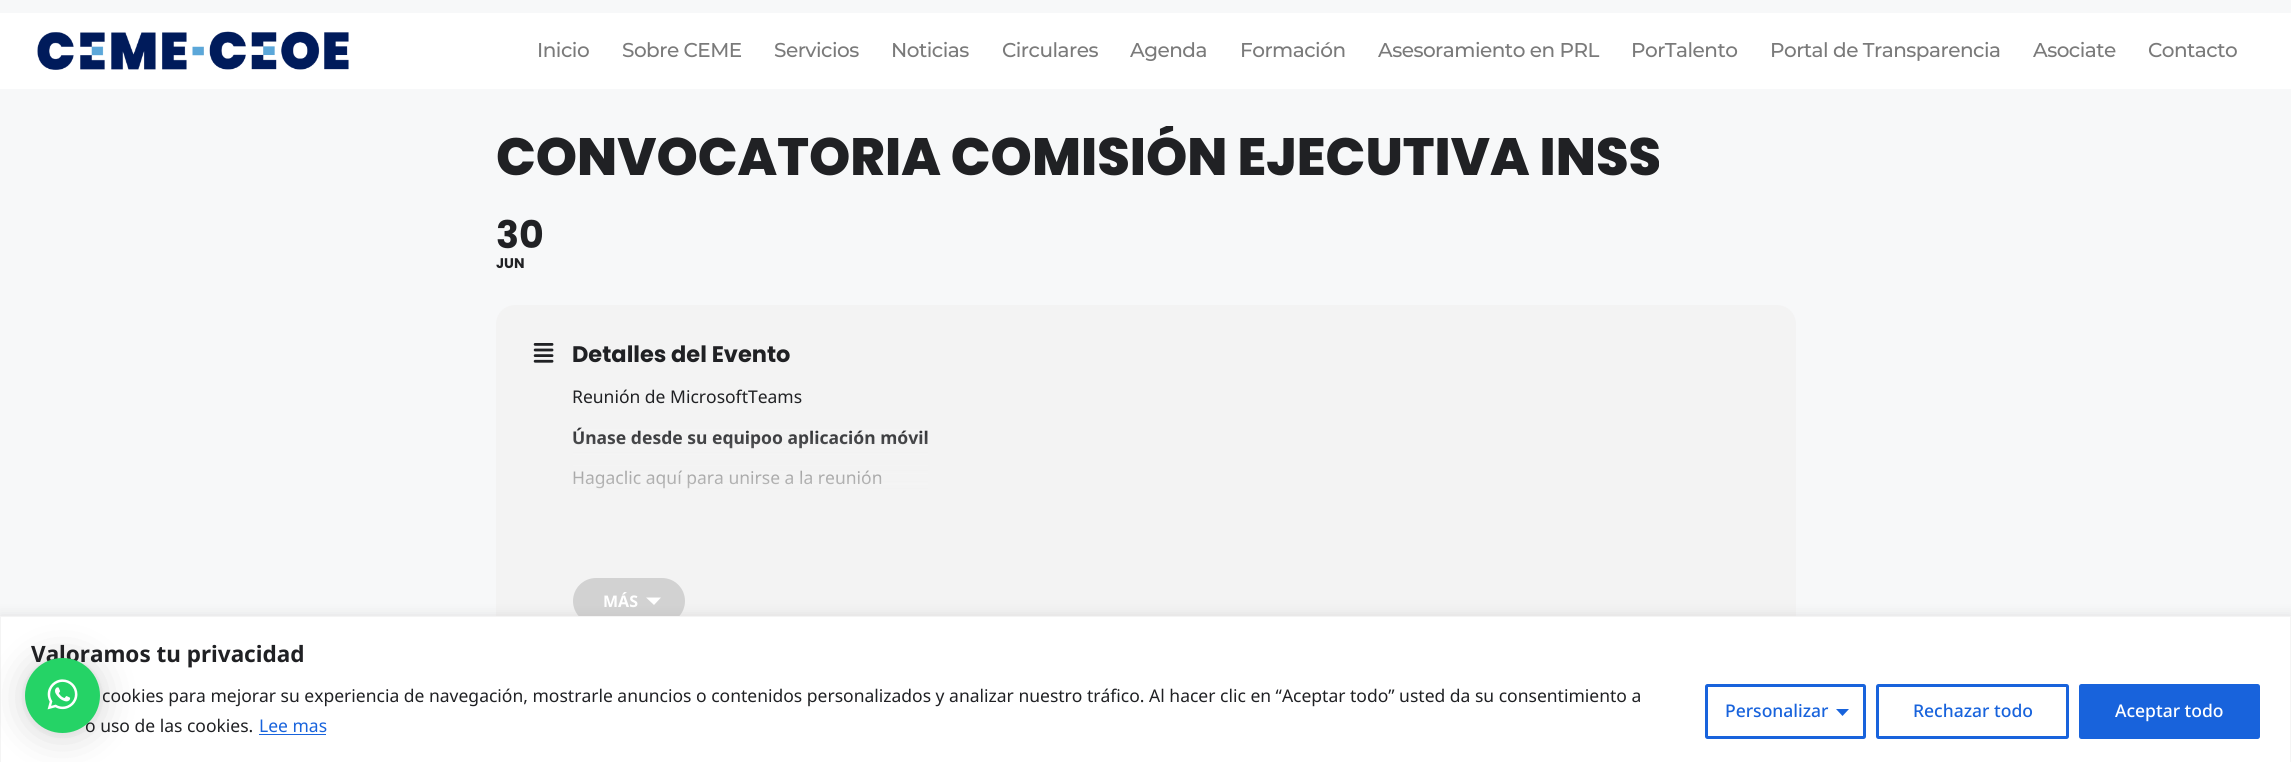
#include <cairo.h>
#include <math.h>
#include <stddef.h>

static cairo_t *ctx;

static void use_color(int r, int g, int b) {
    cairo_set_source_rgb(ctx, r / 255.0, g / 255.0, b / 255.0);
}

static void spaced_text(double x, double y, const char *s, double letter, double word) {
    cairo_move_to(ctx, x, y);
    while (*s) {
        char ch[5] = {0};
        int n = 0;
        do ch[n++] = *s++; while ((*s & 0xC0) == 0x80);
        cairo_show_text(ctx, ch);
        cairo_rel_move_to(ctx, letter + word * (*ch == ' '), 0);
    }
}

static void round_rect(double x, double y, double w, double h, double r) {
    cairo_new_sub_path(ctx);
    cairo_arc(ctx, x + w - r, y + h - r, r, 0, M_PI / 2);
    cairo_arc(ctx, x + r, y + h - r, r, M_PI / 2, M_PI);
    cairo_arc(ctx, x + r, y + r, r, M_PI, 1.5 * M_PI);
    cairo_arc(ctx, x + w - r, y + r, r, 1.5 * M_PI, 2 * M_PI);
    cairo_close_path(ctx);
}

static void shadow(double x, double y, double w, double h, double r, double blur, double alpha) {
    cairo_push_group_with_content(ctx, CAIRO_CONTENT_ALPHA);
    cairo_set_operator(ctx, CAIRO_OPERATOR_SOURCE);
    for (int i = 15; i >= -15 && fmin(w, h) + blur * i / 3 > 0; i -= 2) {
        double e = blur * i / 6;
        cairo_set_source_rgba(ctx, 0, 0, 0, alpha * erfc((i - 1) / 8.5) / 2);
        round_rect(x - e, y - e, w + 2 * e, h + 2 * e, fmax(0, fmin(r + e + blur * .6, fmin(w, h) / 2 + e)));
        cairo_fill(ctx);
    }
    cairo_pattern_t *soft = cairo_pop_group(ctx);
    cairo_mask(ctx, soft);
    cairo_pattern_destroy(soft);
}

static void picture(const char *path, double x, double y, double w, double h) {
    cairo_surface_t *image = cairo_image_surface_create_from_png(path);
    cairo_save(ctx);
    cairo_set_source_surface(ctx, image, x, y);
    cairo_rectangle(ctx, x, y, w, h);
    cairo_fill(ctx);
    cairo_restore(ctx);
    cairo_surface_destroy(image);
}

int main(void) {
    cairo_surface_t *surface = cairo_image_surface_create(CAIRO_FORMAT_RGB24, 2291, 762);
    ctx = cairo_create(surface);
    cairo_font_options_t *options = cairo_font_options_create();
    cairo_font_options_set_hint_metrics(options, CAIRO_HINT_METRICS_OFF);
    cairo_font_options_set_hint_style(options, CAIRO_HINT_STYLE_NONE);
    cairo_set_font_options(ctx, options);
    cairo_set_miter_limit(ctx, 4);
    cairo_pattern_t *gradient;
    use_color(247, 248, 249);
    cairo_paint(ctx);
    use_color(255, 255, 255);
    cairo_rectangle(ctx, 0, 13, 2291, 76);
    cairo_fill(ctx);
    picture("img1.png", 37, 31, 312, 39);
    cairo_select_font_face(ctx, "Montserrat Medium", CAIRO_FONT_SLANT_NORMAL, CAIRO_FONT_WEIGHT_NORMAL);
    cairo_set_font_size(ctx, 20);
    use_color(122, 122, 122);
    spaced_text(537, 57, "Inicio", -0.5, 0);
    spaced_text(622, 57, "Sobre CEME", -0.5, 0);
    spaced_text(774, 57, "Servicios", -0.5, 0);
    spaced_text(891, 57, "Noticias", -0.5, 0);
    spaced_text(1002, 57, "Circulares", -0.5, 0);
    spaced_text(1130, 57, "Agenda", -0.5, 0);
    spaced_text(1240, 57, "Formación", -0.5, 0);
    spaced_text(1378, 57, "Asesoramiento en PRL", -0.5, 0);
    spaced_text(1631, 57, "PorTalento", -0.5, 0);
    spaced_text(1770, 57, "Portal de Transparencia", -0.5, 0);
    spaced_text(2033, 57, "Asociate", -0.5, 0);
    spaced_text(2148, 57, "Contacto", -0.5, 0);
    cairo_save(ctx);
    round_rect(496, 126, 1300, 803, 6);
    cairo_clip(ctx);
    cairo_select_font_face(ctx, "Poppins ExtraBold", CAIRO_FONT_SLANT_NORMAL, CAIRO_FONT_WEIGHT_NORMAL);
    cairo_set_font_size(ctx, 52.5);
    use_color(32, 33, 36);
    cairo_move_to(ctx, 496, 175);
    cairo_show_text(ctx, "CONVOCATORIA COMISIÓN EJECUTIVA INSS");
    cairo_restore(ctx);
    cairo_select_font_face(ctx, "Poppins", CAIRO_FONT_SLANT_NORMAL, CAIRO_FONT_WEIGHT_BOLD);
    cairo_set_font_size(ctx, 38);
    use_color(32, 33, 36);
    cairo_move_to(ctx, 496, 248);
    cairo_show_text(ctx, "30");
    cairo_set_font_size(ctx, 14);
    cairo_move_to(ctx, 496, 268);
    cairo_show_text(ctx, "JUN");
    use_color(243, 243, 243);
    round_rect(496, 305, 1300, 356, 19);
    cairo_fill(ctx);
    picture("img2.png", 533, 343, 21, 20);
    cairo_set_font_size(ctx, 22.5);
    use_color(32, 33, 36);
    cairo_move_to(ctx, 572, 362);
    cairo_show_text(ctx, "Detalles del Evento");
    cairo_select_font_face(ctx, "Noto Sans", CAIRO_FONT_SLANT_NORMAL, CAIRO_FONT_WEIGHT_NORMAL);
    cairo_set_font_size(ctx, 17.5);
    cairo_move_to(ctx, 572, 403);
    cairo_show_text(ctx, "Reunión de MicrosoftTeams");
    cairo_select_font_face(ctx, "Noto Sans", CAIRO_FONT_SLANT_NORMAL, CAIRO_FONT_WEIGHT_BOLD);
    cairo_move_to(ctx, 572, 444);
    cairo_show_text(ctx, "Únase desde su equipoo aplicación móvil");
    cairo_select_font_face(ctx, "Noto Sans", CAIRO_FONT_SLANT_NORMAL, CAIRO_FONT_WEIGHT_NORMAL);
    use_color(101, 101, 101);
    cairo_move_to(ctx, 572, 484);
    cairo_show_text(ctx, "Hagaclic aquí para unirse a la reunión");
    gradient = cairo_pattern_create_linear(1166, 571, 1166, 384);
    cairo_pattern_add_color_stop_rgba(gradient, 0.2, 0.953, 0.953, 0.953, 1);
    cairo_pattern_add_color_stop_rgba(gradient, 0.8, 0.953, 0.953, 0.953, 0);
    cairo_set_source(ctx, gradient);
    cairo_pattern_destroy(gradient);
    cairo_rectangle(ctx, 573, 427, 355, 62);
    cairo_fill(ctx);
    use_color(210, 210, 210);
    round_rect(573, 578, 112, 46, 23);
    cairo_fill(ctx);
    cairo_select_font_face(ctx, "Noto Sans", CAIRO_FONT_SLANT_NORMAL, CAIRO_FONT_WEIGHT_BOLD);
    cairo_set_font_size(ctx, 16);
    use_color(255, 255, 255);
    cairo_move_to(ctx, 603, 607);
    cairo_show_text(ctx, "MÁS");
    cairo_new_path(ctx);
    cairo_move_to(ctx, 646, 597.5);
    cairo_line_to(ctx, 661, 597.5);
    cairo_line_to(ctx, 654, 605);
    cairo_close_path(ctx);
    cairo_fill(ctx);
    use_color(172, 171, 171);
    shadow(0, 615, 2291, 146, 0, 6, 0.3);
    use_color(255, 255, 255);
    cairo_rectangle(ctx, 0.5, 616.5, 2290, 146);
    cairo_fill_preserve(ctx);
    use_color(244, 244, 244);
    cairo_set_line_width(ctx, 1);
    cairo_stroke(ctx);
    use_color(0, 0, 0);
    shadow(25, 660, 75, 75, 37.5, 20, 0.16);
    shadow(25, 659, 75, 75, 37.5, 4, 0.06);
    cairo_select_font_face(ctx, "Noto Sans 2", CAIRO_FONT_SLANT_NORMAL, CAIRO_FONT_WEIGHT_BOLD);
    cairo_set_font_size(ctx, 22.5);
    use_color(32, 33, 36);
    cairo_move_to(ctx, 31, 662);
    cairo_show_text(ctx, "Valoramos tu privacidad");
    cairo_select_font_face(ctx, "Noto Sans 2", CAIRO_FONT_SLANT_NORMAL, CAIRO_FONT_WEIGHT_NORMAL);
    cairo_set_font_size(ctx, 17.5);
    cairo_move_to(ctx, 85, 732);
    cairo_show_text(ctx, "o uso de las cookies.");
    use_color(37, 211, 102);
    cairo_new_path(ctx);
    cairo_arc(ctx, 62.5, 695.5, 37.5, 0, 2 * M_PI);
    cairo_fill(ctx);
    picture("img3.png", 47, 679, 31, 31);
    use_color(32, 33, 36);
    cairo_move_to(ctx, 102, 702);
    cairo_show_text(ctx, "cookies para mejorar su experiencia de navegación, mostrarle anuncios o contenidos personalizados y analizar nuestro tráfico. Al hacer clic en “Aceptar todo” usted da su consentimiento a");
    use_color(24, 99, 220);
    cairo_move_to(ctx, 259, 732);
    cairo_show_text(ctx, "Lee mas");
    cairo_rectangle(ctx, 259, 734, 67, 1);
    cairo_fill(ctx);
    round_rect(1706.5, 685.5, 158, 52, 1);
    cairo_set_line_width(ctx, 3);
    cairo_stroke(ctx);
    cairo_select_font_face(ctx, "Noto Sans Medium", CAIRO_FONT_SLANT_NORMAL, CAIRO_FONT_WEIGHT_NORMAL);
    cairo_move_to(ctx, 1725, 717);
    cairo_show_text(ctx, "Personalizar");
    cairo_new_path(ctx);
    cairo_move_to(ctx, 1836, 709);
    cairo_line_to(ctx, 1849, 709);
    cairo_line_to(ctx, 1842.5, 716);
    cairo_close_path(ctx);
    cairo_fill(ctx);
    round_rect(1877.5, 685.5, 190, 52, 1);
    cairo_stroke(ctx);
    cairo_move_to(ctx, 1913, 717);
    cairo_show_text(ctx, "Rechazar todo");
    round_rect(2080.5, 685.5, 178, 52, 1);
    cairo_fill_preserve(ctx);
    cairo_stroke(ctx);
    use_color(255, 255, 255);
    cairo_move_to(ctx, 2115, 717);
    cairo_show_text(ctx, "Aceptar todo");
    cairo_surface_write_to_png(surface, "result.png");
    cairo_font_options_destroy(options);
    cairo_destroy(ctx);
    cairo_surface_destroy(surface);
    return 0;
}
